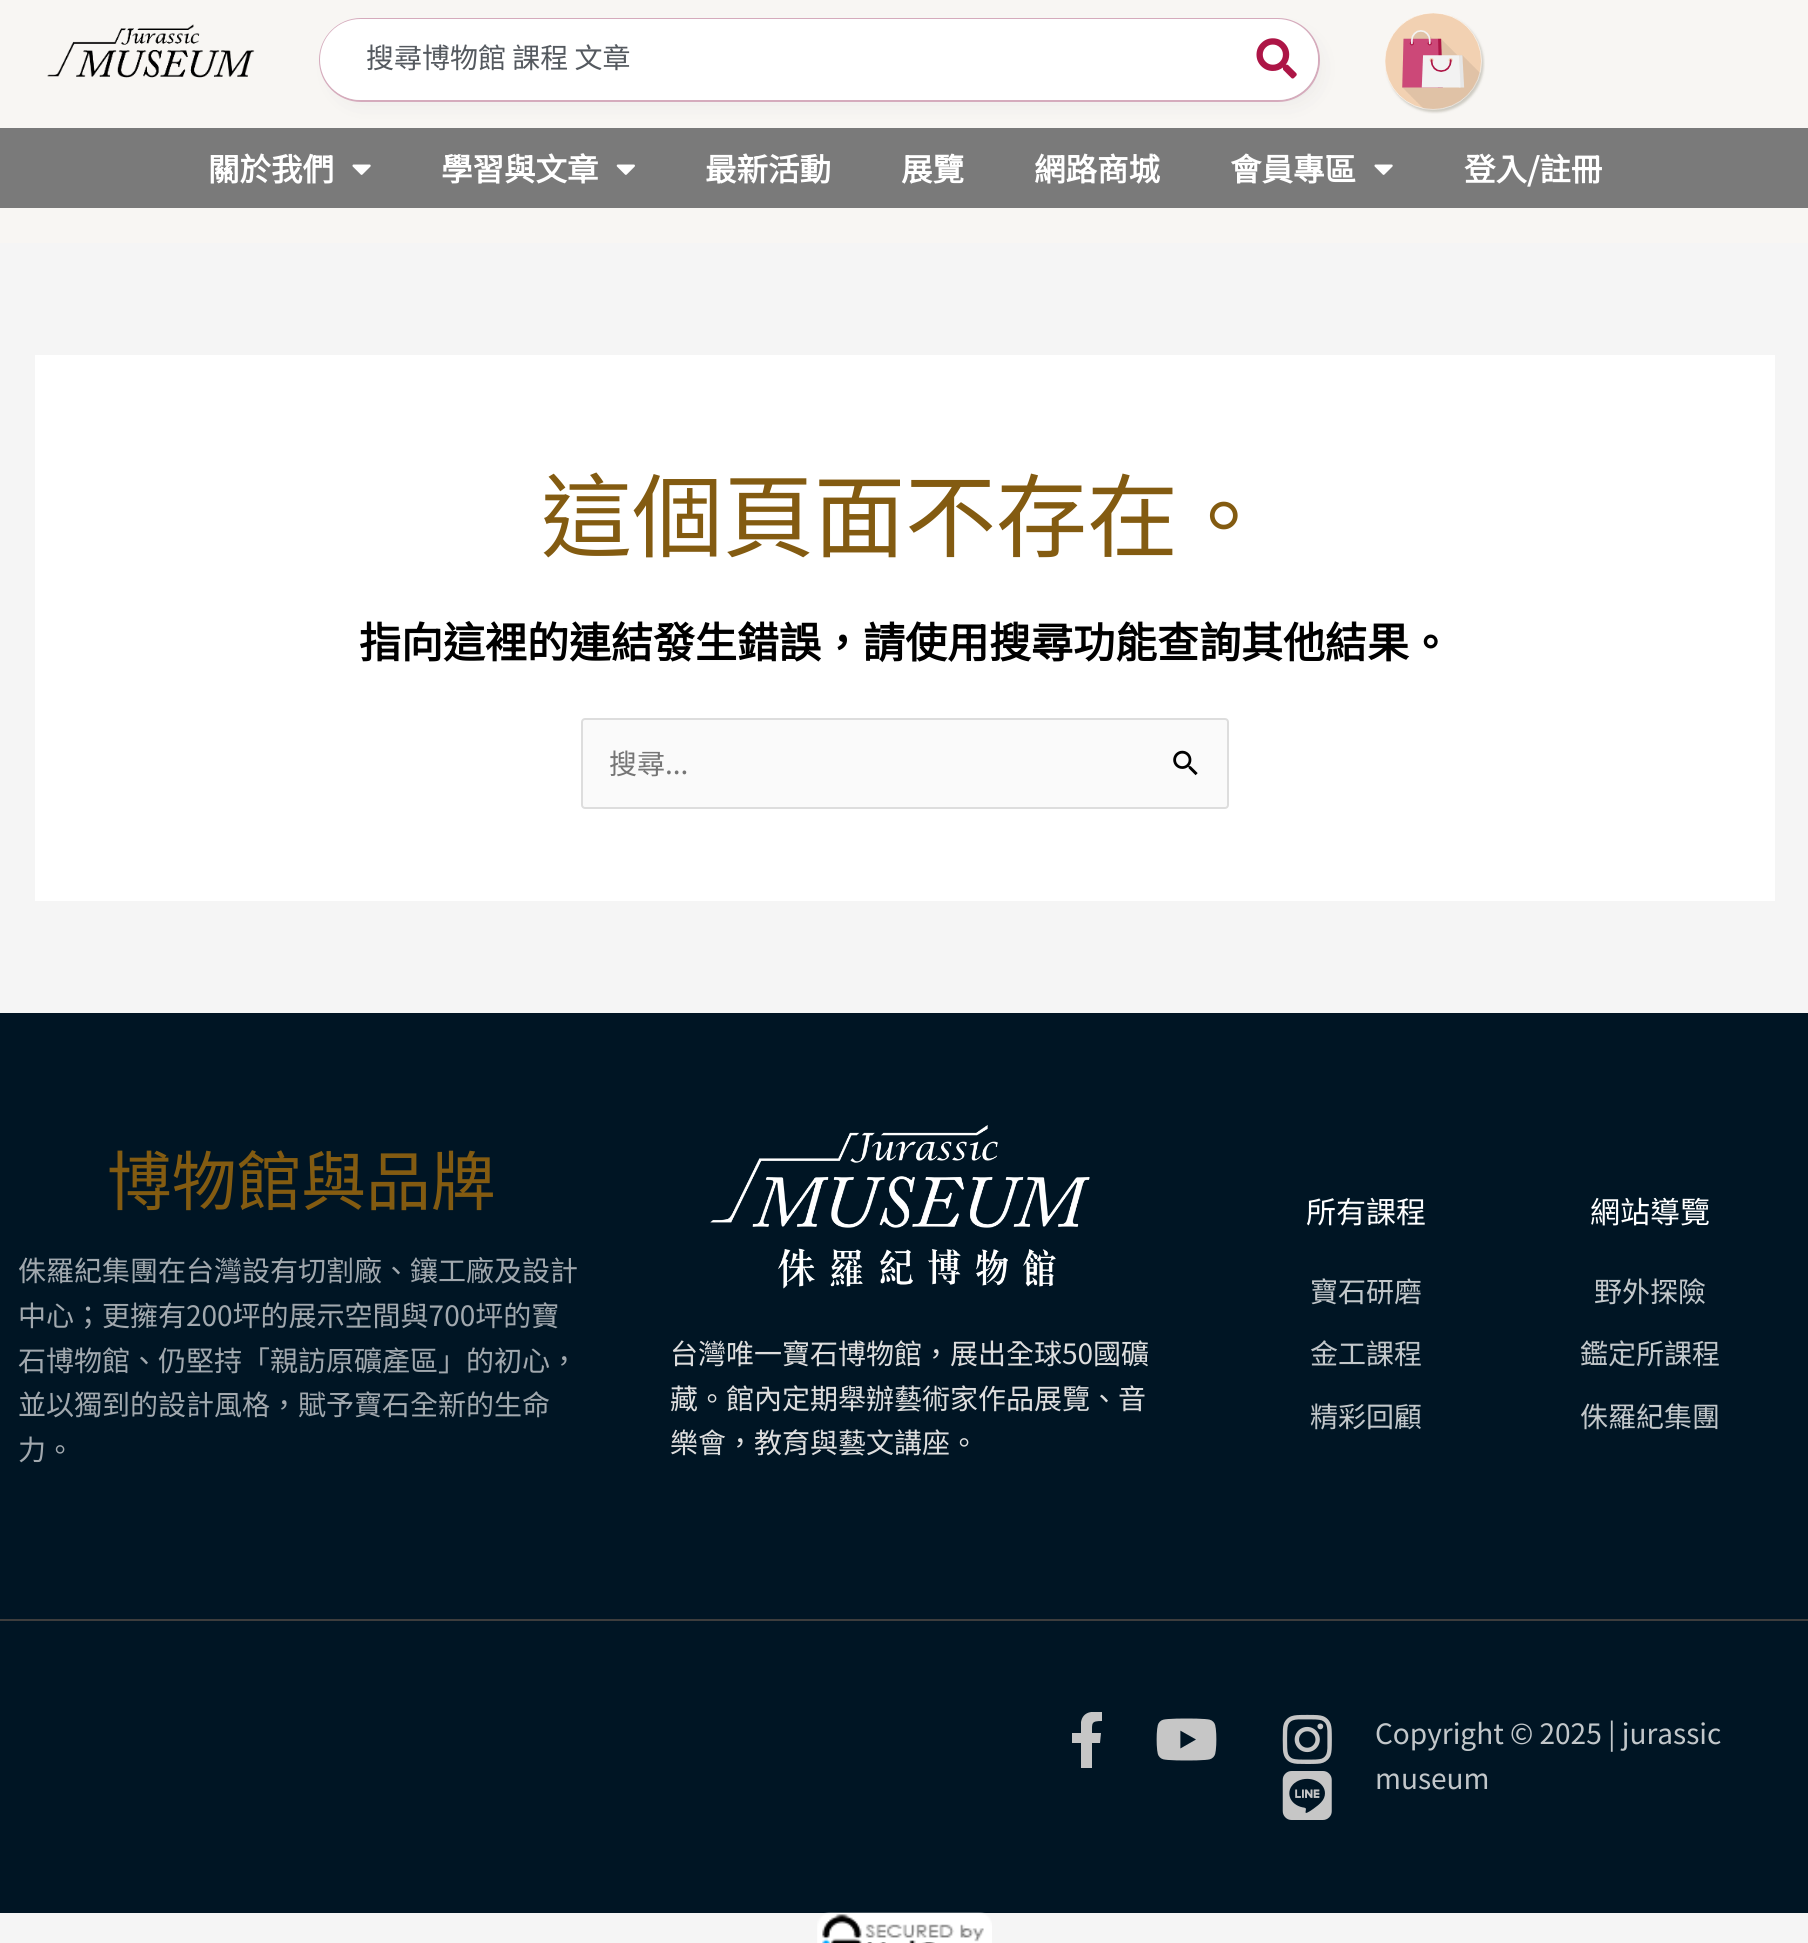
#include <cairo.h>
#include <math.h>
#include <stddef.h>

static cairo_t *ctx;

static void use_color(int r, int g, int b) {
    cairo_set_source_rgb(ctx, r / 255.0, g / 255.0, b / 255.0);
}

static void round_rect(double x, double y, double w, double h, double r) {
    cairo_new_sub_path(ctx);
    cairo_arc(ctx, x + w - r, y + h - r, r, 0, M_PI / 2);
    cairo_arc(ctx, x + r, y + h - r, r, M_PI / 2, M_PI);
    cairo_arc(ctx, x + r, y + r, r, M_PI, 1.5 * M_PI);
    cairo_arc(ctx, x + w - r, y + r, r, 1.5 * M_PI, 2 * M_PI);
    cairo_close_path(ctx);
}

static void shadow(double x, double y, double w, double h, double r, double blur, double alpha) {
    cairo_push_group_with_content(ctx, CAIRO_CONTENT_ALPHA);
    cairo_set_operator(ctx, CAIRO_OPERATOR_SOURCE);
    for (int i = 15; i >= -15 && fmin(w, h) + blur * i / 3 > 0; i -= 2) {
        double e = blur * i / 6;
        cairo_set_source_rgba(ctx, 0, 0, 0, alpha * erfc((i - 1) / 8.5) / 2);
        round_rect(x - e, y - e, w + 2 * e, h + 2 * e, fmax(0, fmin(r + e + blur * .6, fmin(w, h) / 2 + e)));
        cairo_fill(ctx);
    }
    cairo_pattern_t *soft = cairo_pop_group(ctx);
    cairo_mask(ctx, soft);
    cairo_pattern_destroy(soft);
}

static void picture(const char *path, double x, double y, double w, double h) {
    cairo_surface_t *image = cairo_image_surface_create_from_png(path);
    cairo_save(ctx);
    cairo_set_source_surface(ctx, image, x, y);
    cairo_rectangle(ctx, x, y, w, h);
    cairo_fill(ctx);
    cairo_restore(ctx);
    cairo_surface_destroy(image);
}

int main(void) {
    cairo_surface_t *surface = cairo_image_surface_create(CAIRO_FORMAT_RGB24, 1808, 1943);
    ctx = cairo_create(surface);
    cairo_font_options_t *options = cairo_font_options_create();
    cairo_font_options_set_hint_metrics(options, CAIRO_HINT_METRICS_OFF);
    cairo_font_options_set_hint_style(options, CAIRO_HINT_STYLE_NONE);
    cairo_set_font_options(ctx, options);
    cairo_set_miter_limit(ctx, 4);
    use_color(245, 245, 245);
    cairo_paint(ctx);
    use_color(248, 246, 243);
    cairo_rectangle(ctx, 0, 0, 1808, 128);
    cairo_fill(ctx);
    picture("img1.png", 47, 24, 208, 54);
    use_color(196, 196, 196);
    shadow(341, 42, 970, 53, 26.5, 13, 0.5);
    round_rect(320, 19, 999, 82, 41);
    use_color(213, 171, 188);
    cairo_stroke(ctx);
    cairo_save(ctx);
    round_rect(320, 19, 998, 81, 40.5);
    cairo_clip(ctx);
    use_color(196, 196, 196);
    shadow(343, 44, 884, 49, 0, 13, 0.5);
    cairo_restore(ctx);
    use_color(255, 255, 255);
    cairo_new_path(ctx);
    cairo_move_to(ctx, 360.5, 19);
    cairo_line_to(ctx, 1236, 19);
    cairo_line_to(ctx, 1236, 100);
    cairo_line_to(ctx, 360.5, 100);
    cairo_curve_to(ctx, 338, 100, 320, 82, 320, 59.5);
    cairo_curve_to(ctx, 320, 37, 338, 19, 360.5, 19);
    cairo_close_path(ctx);
    cairo_fill(ctx);
    cairo_select_font_face(ctx, "Noto Sans CJK TC", CAIRO_FONT_SLANT_NORMAL, CAIRO_FONT_WEIGHT_NORMAL);
    cairo_set_font_size(ctx, 28);
    use_color(84, 89, 95);
    cairo_move_to(ctx, 366, 68);
    cairo_show_text(ctx, "搜尋博物館 課程 文章");
    use_color(255, 255, 255);
    cairo_new_path(ctx);
    cairo_move_to(ctx, 1236, 19);
    cairo_line_to(ctx, 1277.5, 19);
    cairo_curve_to(ctx, 1300, 19, 1318, 37, 1318, 59.5);
    cairo_curve_to(ctx, 1318, 82, 1300, 100, 1277.5, 100);
    cairo_line_to(ctx, 1236, 100);
    cairo_close_path(ctx);
    cairo_fill(ctx);
    picture("img2.png", 1256, 38, 41, 41);
    picture("img3.png", 1385, 13, 100, 101);
    use_color(122, 122, 122);
    cairo_rectangle(ctx, 0, 128, 1808, 80);
    cairo_fill(ctx);
    cairo_select_font_face(ctx, "Noto Sans TC", CAIRO_FONT_SLANT_NORMAL, CAIRO_FONT_WEIGHT_BOLD);
    cairo_set_font_size(ctx, 31.5);
    use_color(255, 255, 255);
    cairo_move_to(ctx, 208, 181);
    cairo_show_text(ctx, "關於我們");
    picture("img4.png", 352, 164, 19, 11);
    cairo_move_to(ctx, 441, 181);
    cairo_show_text(ctx, "學習與文章");
    picture("img5.png", 616, 164, 19, 11);
    cairo_move_to(ctx, 705, 181);
    cairo_show_text(ctx, "最新活動");
    cairo_move_to(ctx, 901, 181);
    cairo_show_text(ctx, "展覽");
    cairo_move_to(ctx, 1034, 181);
    cairo_show_text(ctx, "網路商城");
    cairo_move_to(ctx, 1230, 181);
    cairo_show_text(ctx, "會員專區");
    picture("img4.png", 1374, 164, 19, 11);
    cairo_move_to(ctx, 1464, 181);
    cairo_show_text(ctx, "登入/註冊");
    use_color(248, 246, 243);
    cairo_rectangle(ctx, 0, 208, 1808, 35);
    cairo_fill(ctx);
    use_color(255, 255, 255);
    cairo_rectangle(ctx, 35, 355, 1740, 546);
    cairo_fill(ctx);
    cairo_select_font_face(ctx, "Noto Sans TC Thin", CAIRO_FONT_SLANT_NORMAL, CAIRO_FONT_WEIGHT_NORMAL);
    cairo_set_font_size(ctx, 91);
    use_color(131, 91, 17);
    cairo_move_to(ctx, 541, 550);
    cairo_show_text(ctx, "這個頁面不存在。");
    cairo_select_font_face(ctx, "Noto Sans TC", CAIRO_FONT_SLANT_NORMAL, CAIRO_FONT_WEIGHT_BOLD);
    cairo_set_font_size(ctx, 42);
    use_color(0, 0, 0);
    cairo_move_to(ctx, 359, 658);
    cairo_show_text(ctx, "指向這裡的連結發生錯誤，請使用搜尋功能查詢其他結果。");
    use_color(250, 250, 250);
    round_rect(582, 719, 646, 89, 3);
    cairo_fill_preserve(ctx);
    use_color(221, 221, 221);
    cairo_stroke(ctx);
    cairo_select_font_face(ctx, "Noto Sans TC Thin", CAIRO_FONT_SLANT_NORMAL, CAIRO_FONT_WEIGHT_NORMAL);
    cairo_set_font_size(ctx, 28);
    use_color(117, 117, 117);
    cairo_move_to(ctx, 609, 774);
    cairo_show_text(ctx, "搜尋...");
    picture("img6.png", 1173, 750, 25, 26);
    use_color(0, 21, 36);
    cairo_rectangle(ctx, 0, 1013, 1808, 606);
    cairo_fill(ctx);
    cairo_select_font_face(ctx, "Noto Sans CJK TC", CAIRO_FONT_SLANT_NORMAL, CAIRO_FONT_WEIGHT_NORMAL);
    cairo_set_font_size(ctx, 64.75);
    use_color(131, 91, 17);
    cairo_move_to(ctx, 107, 1205);
    cairo_show_text(ctx, "博物館與品牌");
    cairo_select_font_face(ctx, "Noto Sans TC Thin", CAIRO_FONT_SLANT_NORMAL, CAIRO_FONT_WEIGHT_NORMAL);
    cairo_set_font_size(ctx, 28);
    use_color(161, 168, 174);
    cairo_move_to(ctx, 18, 1281);
    cairo_show_text(ctx, "侏羅紀集團在台灣設有切割廠、鑲工廠及設計");
    cairo_move_to(ctx, 18, 1326);
    cairo_show_text(ctx, "中心；更擁有200坪的展示空間與700坪的寶");
    cairo_move_to(ctx, 18, 1371);
    cairo_show_text(ctx, "石博物館、仍堅持「親訪原礦產區」的初心，");
    cairo_move_to(ctx, 18, 1415);
    cairo_show_text(ctx, "並以獨到的設計風格，賦予寶石全新的生命");
    cairo_move_to(ctx, 18, 1460);
    cairo_show_text(ctx, "力。");
    picture("img7.png", 710, 1125, 380, 164);
    use_color(222, 222, 222);
    cairo_move_to(ctx, 670, 1364);
    cairo_show_text(ctx, "台灣唯一寶石博物館，展出全球50國礦");
    cairo_move_to(ctx, 670, 1409);
    cairo_show_text(ctx, "藏。館內定期舉辦藝術家作品展覽、音");
    cairo_move_to(ctx, 670, 1453);
    cairo_show_text(ctx, "樂會，教育與藝文講座。");
    cairo_select_font_face(ctx, "Noto Sans CJK TC", CAIRO_FONT_SLANT_NORMAL, CAIRO_FONT_WEIGHT_NORMAL);
    cairo_set_font_size(ctx, 30);
    use_color(255, 255, 255);
    cairo_move_to(ctx, 1306, 1223);
    cairo_show_text(ctx, "所有課程");
    cairo_select_font_face(ctx, "Noto Sans TC Thin", CAIRO_FONT_SLANT_NORMAL, CAIRO_FONT_WEIGHT_NORMAL);
    cairo_set_font_size(ctx, 28);
    use_color(194, 199, 202);
    cairo_move_to(ctx, 1310, 1302);
    cairo_show_text(ctx, "寶石研磨");
    cairo_move_to(ctx, 1310, 1364);
    cairo_show_text(ctx, "金工課程");
    cairo_move_to(ctx, 1310, 1427);
    cairo_show_text(ctx, "精彩回顧");
    cairo_select_font_face(ctx, "Noto Sans CJK TC", CAIRO_FONT_SLANT_NORMAL, CAIRO_FONT_WEIGHT_NORMAL);
    cairo_set_font_size(ctx, 30);
    use_color(255, 255, 255);
    cairo_move_to(ctx, 1590, 1223);
    cairo_show_text(ctx, "網站導覽");
    cairo_select_font_face(ctx, "Noto Sans TC Thin", CAIRO_FONT_SLANT_NORMAL, CAIRO_FONT_WEIGHT_NORMAL);
    cairo_set_font_size(ctx, 28);
    use_color(194, 199, 202);
    cairo_move_to(ctx, 1594, 1302);
    cairo_show_text(ctx, "野外探險");
    cairo_move_to(ctx, 1580, 1364);
    cairo_show_text(ctx, "鑑定所課程");
    cairo_move_to(ctx, 1580, 1427);
    cairo_show_text(ctx, "侏羅紀集團");
    use_color(0, 21, 36);
    cairo_rectangle(ctx, 0, 1621, 1808, 292);
    cairo_fill(ctx);
    use_color(61, 61, 61);
    cairo_rectangle(ctx, 0, 1619, 1808, 2);
    cairo_fill(ctx);
    cairo_save(ctx);
    cairo_rectangle(ctx, 922, 1712, 419, 112);
    cairo_clip(ctx);
    use_color(198, 198, 198);
    cairo_new_path(ctx);
    cairo_move_to(ctx, 1100, 1743);
    cairo_line_to(ctx, 1092, 1743);
    cairo_line_to(ctx, 1092, 1768);
    cairo_line_to(ctx, 1081, 1768);
    cairo_line_to(ctx, 1081, 1743);
    cairo_line_to(ctx, 1072, 1743);
    cairo_line_to(ctx, 1072, 1733);
    cairo_line_to(ctx, 1081, 1733);
    cairo_line_to(ctx, 1081, 1722);
    cairo_curve_to(ctx, 1083, 1711, 1093, 1711, 1102, 1712);
    cairo_line_to(ctx, 1102, 1721);
    cairo_curve_to(ctx, 1091, 1721, 1092, 1723, 1092, 1733);
    cairo_line_to(ctx, 1101, 1733);
    cairo_close_path(ctx);
    cairo_fill(ctx);
    cairo_restore(ctx);
    picture("img8.png", 1156, 1718, 61, 43);
    picture("img9.png", 1282, 1714, 50, 50);
    picture("img10.png", 1282, 1771, 50, 49);
    use_color(194, 199, 202);
    cairo_move_to(ctx, 1375, 1744);
    cairo_show_text(ctx, "Copyright © 2025 | jurassic");
    cairo_move_to(ctx, 1375, 1789);
    cairo_show_text(ctx, "museum");
    picture("img11.png", 817, 1912, 175, 31);
    cairo_surface_write_to_png(surface, "result.png");
    cairo_font_options_destroy(options);
    cairo_destroy(ctx);
    cairo_surface_destroy(surface);
    return 0;
}
